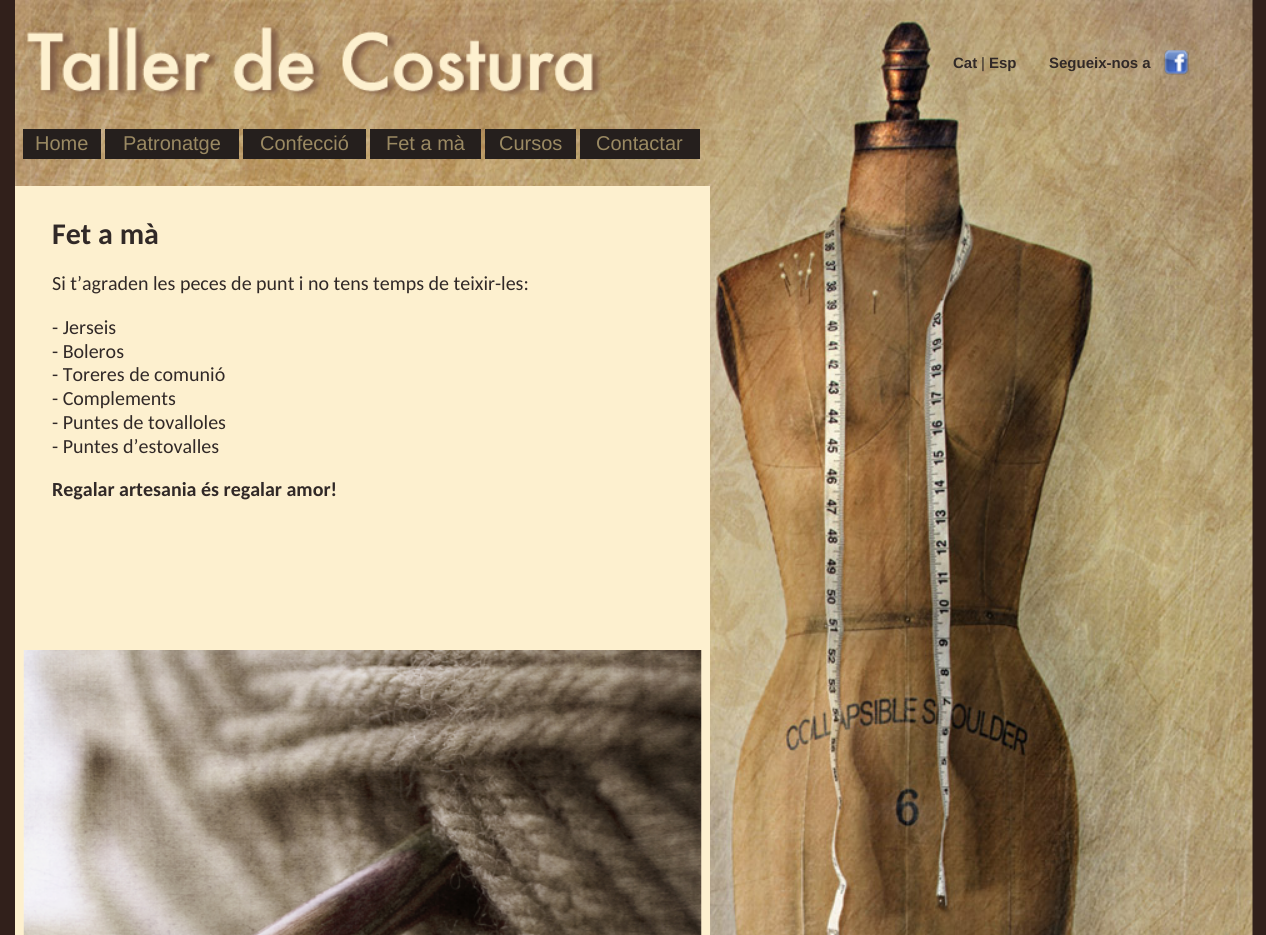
#include <cairo.h>
#include <math.h>
#include <stddef.h>

static cairo_t *ctx;

static void use_color(int r, int g, int b) {
    cairo_set_source_rgb(ctx, r / 255.0, g / 255.0, b / 255.0);
}

static void picture(const char *path, double x, double y, double w, double h) {
    cairo_surface_t *image = cairo_image_surface_create_from_png(path);
    cairo_save(ctx);
    cairo_set_source_surface(ctx, image, x, y);
    cairo_rectangle(ctx, x, y, w, h);
    cairo_fill(ctx);
    cairo_restore(ctx);
    cairo_surface_destroy(image);
}

int main(void) {
    cairo_surface_t *surface = cairo_image_surface_create(CAIRO_FORMAT_RGB24, 1266, 935);
    ctx = cairo_create(surface);
    cairo_font_options_t *options = cairo_font_options_create();
    cairo_font_options_set_hint_metrics(options, CAIRO_HINT_METRICS_OFF);
    cairo_font_options_set_hint_style(options, CAIRO_HINT_STYLE_NONE);
    cairo_set_font_options(ctx, options);
    cairo_set_miter_limit(ctx, 4);
    use_color(49, 32, 27);
    cairo_paint(ctx);
    picture("img1.png", 15, 0, 1238, 935);
    picture("img2.png", 27, 26, 575, 72);
    cairo_select_font_face(ctx, "Liberation Sans", CAIRO_FONT_SLANT_NORMAL, CAIRO_FONT_WEIGHT_BOLD);
    cairo_set_font_size(ctx, 15);
    use_color(49, 41, 39);
    cairo_move_to(ctx, 953, 68);
    cairo_show_text(ctx, "Cat");
    cairo_select_font_face(ctx, "Liberation Sans", CAIRO_FONT_SLANT_NORMAL, CAIRO_FONT_WEIGHT_NORMAL);
    cairo_move_to(ctx, 981, 68);
    cairo_show_text(ctx, "|");
    cairo_select_font_face(ctx, "Liberation Sans", CAIRO_FONT_SLANT_NORMAL, CAIRO_FONT_WEIGHT_BOLD);
    cairo_move_to(ctx, 989, 68);
    cairo_show_text(ctx, "Esp");
    cairo_move_to(ctx, 1049, 68);
    cairo_show_text(ctx, "Segueix-nos a");
    picture("img3.png", 1163, 50, 26, 25);
    use_color(37, 31, 29);
    cairo_rectangle(ctx, 23, 129, 78, 30);
    cairo_fill(ctx);
    cairo_select_font_face(ctx, "Liberation Sans", CAIRO_FONT_SLANT_NORMAL, CAIRO_FONT_WEIGHT_NORMAL);
    cairo_set_font_size(ctx, 20);
    use_color(154, 137, 98);
    cairo_move_to(ctx, 35, 150);
    cairo_show_text(ctx, "Home");
    use_color(37, 31, 29);
    cairo_rectangle(ctx, 105, 129, 134, 30);
    cairo_fill(ctx);
    use_color(154, 137, 98);
    cairo_move_to(ctx, 123, 150);
    cairo_show_text(ctx, "Patronatge");
    use_color(37, 31, 29);
    cairo_rectangle(ctx, 243, 129, 123, 30);
    cairo_fill(ctx);
    use_color(154, 137, 98);
    cairo_move_to(ctx, 260, 150);
    cairo_show_text(ctx, "Confecció");
    use_color(37, 31, 29);
    cairo_rectangle(ctx, 370, 129, 111, 30);
    cairo_fill(ctx);
    use_color(154, 137, 98);
    cairo_move_to(ctx, 386, 150);
    cairo_show_text(ctx, "Fet a mà");
    use_color(37, 31, 29);
    cairo_rectangle(ctx, 485, 129, 91, 30);
    cairo_fill(ctx);
    use_color(154, 137, 98);
    cairo_move_to(ctx, 499, 150);
    cairo_show_text(ctx, "Cursos");
    use_color(37, 31, 29);
    cairo_rectangle(ctx, 580, 129, 120, 30);
    cairo_fill(ctx);
    use_color(154, 137, 98);
    cairo_move_to(ctx, 596, 150);
    cairo_show_text(ctx, "Contactar");
    use_color(253, 240, 207);
    cairo_rectangle(ctx, 15, 186, 695, 749);
    cairo_fill(ctx);
    cairo_select_font_face(ctx, "Carlito", CAIRO_FONT_SLANT_NORMAL, CAIRO_FONT_WEIGHT_BOLD);
    cairo_set_font_size(ctx, 30);
    use_color(49, 41, 39);
    cairo_move_to(ctx, 52, 244);
    cairo_show_text(ctx, "Fet a mà");
    cairo_select_font_face(ctx, "Carlito", CAIRO_FONT_SLANT_NORMAL, CAIRO_FONT_WEIGHT_NORMAL);
    cairo_set_font_size(ctx, 20);
    cairo_move_to(ctx, 52, 290);
    cairo_show_text(ctx, "Si t’agraden les peces de punt i no tens temps de teixir-les:");
    cairo_move_to(ctx, 52, 334);
    cairo_show_text(ctx, "- Jerseis");
    cairo_move_to(ctx, 52, 358);
    cairo_show_text(ctx, "- Boleros");
    cairo_move_to(ctx, 52, 381);
    cairo_show_text(ctx, "- Toreres de comunió");
    cairo_move_to(ctx, 52, 405);
    cairo_show_text(ctx, "- Complements");
    cairo_move_to(ctx, 52, 429);
    cairo_show_text(ctx, "- Puntes de tovalloles");
    cairo_move_to(ctx, 52, 453);
    cairo_show_text(ctx, "- Puntes d’estovalles");
    cairo_select_font_face(ctx, "Carlito", CAIRO_FONT_SLANT_NORMAL, CAIRO_FONT_WEIGHT_BOLD);
    cairo_move_to(ctx, 52, 496);
    cairo_show_text(ctx, "Regalar artesania és regalar amor!");
    picture("img4.png", 23, 650, 679, 285);
    cairo_surface_write_to_png(surface, "result.png");
    cairo_font_options_destroy(options);
    cairo_destroy(ctx);
    cairo_surface_destroy(surface);
    return 0;
}
